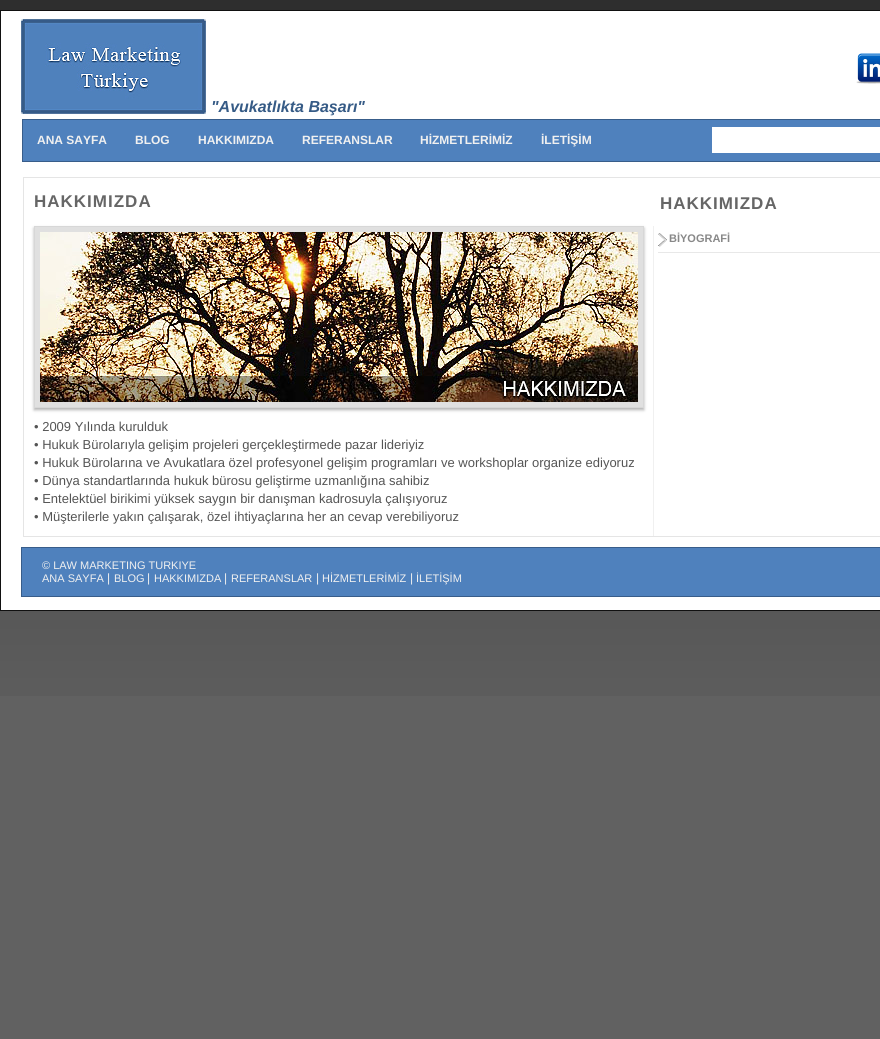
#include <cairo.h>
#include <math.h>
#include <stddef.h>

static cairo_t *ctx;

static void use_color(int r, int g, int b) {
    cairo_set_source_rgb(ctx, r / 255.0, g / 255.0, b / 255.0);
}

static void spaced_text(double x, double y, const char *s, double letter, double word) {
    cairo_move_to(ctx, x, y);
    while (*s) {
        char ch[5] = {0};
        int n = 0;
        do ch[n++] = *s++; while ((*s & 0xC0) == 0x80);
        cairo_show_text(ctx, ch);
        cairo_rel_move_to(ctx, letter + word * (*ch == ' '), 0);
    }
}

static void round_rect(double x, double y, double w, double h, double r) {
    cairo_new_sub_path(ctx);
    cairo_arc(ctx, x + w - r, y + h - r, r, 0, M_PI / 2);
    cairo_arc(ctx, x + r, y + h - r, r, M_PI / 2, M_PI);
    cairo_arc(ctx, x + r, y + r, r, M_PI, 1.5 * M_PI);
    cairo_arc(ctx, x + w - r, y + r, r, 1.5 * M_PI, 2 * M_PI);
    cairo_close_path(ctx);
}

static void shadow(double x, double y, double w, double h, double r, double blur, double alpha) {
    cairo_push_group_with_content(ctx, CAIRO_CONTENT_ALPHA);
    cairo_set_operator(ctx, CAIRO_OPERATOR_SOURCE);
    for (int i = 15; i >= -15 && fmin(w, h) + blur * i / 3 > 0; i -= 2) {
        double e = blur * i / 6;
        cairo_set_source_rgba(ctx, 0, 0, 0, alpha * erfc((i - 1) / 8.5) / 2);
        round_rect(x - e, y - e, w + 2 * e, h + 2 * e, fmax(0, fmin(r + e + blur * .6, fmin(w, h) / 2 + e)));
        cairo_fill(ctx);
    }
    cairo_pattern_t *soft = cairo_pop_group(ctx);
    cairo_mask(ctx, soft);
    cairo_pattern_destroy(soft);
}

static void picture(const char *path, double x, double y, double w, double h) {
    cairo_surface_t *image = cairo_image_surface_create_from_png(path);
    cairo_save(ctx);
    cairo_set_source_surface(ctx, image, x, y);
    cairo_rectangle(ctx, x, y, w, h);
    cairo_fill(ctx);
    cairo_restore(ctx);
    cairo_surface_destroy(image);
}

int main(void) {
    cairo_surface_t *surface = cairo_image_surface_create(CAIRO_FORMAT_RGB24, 880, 1039);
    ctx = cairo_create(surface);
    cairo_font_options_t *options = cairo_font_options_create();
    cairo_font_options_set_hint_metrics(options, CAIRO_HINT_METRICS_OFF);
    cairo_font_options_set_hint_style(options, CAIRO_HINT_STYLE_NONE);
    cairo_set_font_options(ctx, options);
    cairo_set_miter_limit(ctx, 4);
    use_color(97, 97, 97);
    cairo_paint(ctx);
    picture("img1.png", 0, 0, 880, 696);
    use_color(255, 255, 255);
    cairo_rectangle(ctx, 0.5, 10.5, 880, 600);
    cairo_fill_preserve(ctx);
    use_color(17, 17, 17);
    cairo_set_line_width(ctx, 1);
    cairo_stroke(ctx);
    picture("img2.png", 21, 19, 185, 95);
    picture("img3.png", 856, 53, 24, 31);
    cairo_select_font_face(ctx, "Liberation Sans", CAIRO_FONT_SLANT_ITALIC, CAIRO_FONT_WEIGHT_BOLD);
    cairo_set_font_size(ctx, 16);
    use_color(54, 91, 134);
    cairo_move_to(ctx, 211, 112);
    cairo_show_text(ctx, "\"Avukatlıkta Başarı\"");
    use_color(79, 129, 189);
    cairo_rectangle(ctx, 22.5, 119.5, 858, 42);
    cairo_fill_preserve(ctx);
    use_color(56, 93, 138);
    cairo_stroke(ctx);
    cairo_select_font_face(ctx, "Liberation Sans", CAIRO_FONT_SLANT_NORMAL, CAIRO_FONT_WEIGHT_BOLD);
    cairo_set_font_size(ctx, 12);
    use_color(240, 240, 240);
    cairo_move_to(ctx, 37, 144);
    cairo_show_text(ctx, "ANA SAYFA");
    cairo_move_to(ctx, 135, 144);
    cairo_show_text(ctx, "BLOG");
    cairo_move_to(ctx, 198, 144);
    cairo_show_text(ctx, "HAKKIMIZDA");
    cairo_move_to(ctx, 302, 144);
    cairo_show_text(ctx, "REFERANSLAR");
    cairo_move_to(ctx, 420, 144);
    cairo_show_text(ctx, "HİZMETLERİMİZ");
    cairo_move_to(ctx, 541, 144);
    cairo_show_text(ctx, "İLETİŞİM");
    use_color(255, 255, 255);
    cairo_rectangle(ctx, 712, 127, 168, 26);
    cairo_fill(ctx);
    cairo_rectangle(ctx, 23.5, 177.5, 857, 359);
    use_color(229, 229, 229);
    cairo_stroke(ctx);
    cairo_set_font_size(ctx, 17);
    use_color(102, 102, 102);
    spaced_text(34, 207, "HAKKIMIZDA", 1, 0);
    spaced_text(660, 209, "HAKKIMIZDA", 1, 0);
    use_color(232, 232, 232);
    cairo_rectangle(ctx, 658, 252, 222, 1);
    cairo_fill(ctx);
    picture("img4.png", 658, 233, 9, 14);
    cairo_set_font_size(ctx, 11);
    use_color(136, 136, 136);
    cairo_move_to(ctx, 669, 242);
    cairo_show_text(ctx, "BİYOGRAFİ");
    use_color(240, 240, 240);
    cairo_rectangle(ctx, 653, 226, 1, 310);
    cairo_fill(ctx);
    use_color(179, 179, 179);
    shadow(34, 228, 610, 182, 0, 1.5, 1);
    use_color(224, 224, 224);
    cairo_rectangle(ctx, 34.5, 226.5, 609, 181);
    cairo_fill_preserve(ctx);
    use_color(215, 215, 215);
    cairo_stroke(ctx);
    picture("img5.png", 40, 232, 598, 170);
    cairo_select_font_face(ctx, "Liberation Sans", CAIRO_FONT_SLANT_NORMAL, CAIRO_FONT_WEIGHT_NORMAL);
    cairo_set_font_size(ctx, 13);
    use_color(85, 85, 85);
    cairo_move_to(ctx, 34, 431);
    cairo_show_text(ctx, "• 2009 Yılında kurulduk");
    cairo_move_to(ctx, 34, 449);
    cairo_show_text(ctx, "• Hukuk Bürolarıyla gelişim projeleri gerçekleştirmede pazar lideriyiz");
    cairo_move_to(ctx, 34, 467);
    cairo_show_text(ctx, "• Hukuk Bürolarına ve Avukatlara özel profesyonel gelişim programları ve workshoplar organize ediyoruz");
    cairo_move_to(ctx, 34, 485);
    cairo_show_text(ctx, "• Dünya standartlarında hukuk bürosu geliştirme uzmanlığına sahibiz");
    cairo_move_to(ctx, 34, 503);
    cairo_show_text(ctx, "• Entelektüel birikimi yüksek saygın bir danışman kadrosuyla çalışıyoruz");
    cairo_move_to(ctx, 34, 521);
    cairo_show_text(ctx, "• Müşterilerle yakın çalışarak, özel ihtiyaçlarına her an cevap verebiliyoruz");
    use_color(79, 129, 189);
    cairo_rectangle(ctx, 21.5, 547.5, 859, 49);
    cairo_fill_preserve(ctx);
    use_color(56, 93, 138);
    cairo_stroke(ctx);
    cairo_set_font_size(ctx, 11);
    use_color(240, 240, 240);
    cairo_move_to(ctx, 42, 569);
    cairo_show_text(ctx, "© LAW MARKETING TURKIYE");
    cairo_move_to(ctx, 42, 582);
    cairo_show_text(ctx, "ANA SAYFA");
    cairo_set_font_size(ctx, 12);
    cairo_move_to(ctx, 107, 582);
    cairo_show_text(ctx, "|");
    cairo_set_font_size(ctx, 11);
    cairo_move_to(ctx, 114, 582);
    cairo_show_text(ctx, "BLOG");
    cairo_set_font_size(ctx, 12);
    cairo_move_to(ctx, 147, 582);
    cairo_show_text(ctx, "|");
    cairo_set_font_size(ctx, 11);
    cairo_move_to(ctx, 154, 582);
    cairo_show_text(ctx, "HAKKIMIZDA");
    cairo_set_font_size(ctx, 12);
    cairo_move_to(ctx, 224, 582);
    cairo_show_text(ctx, "|");
    cairo_set_font_size(ctx, 11);
    cairo_move_to(ctx, 231, 582);
    cairo_show_text(ctx, "REFERANSLAR");
    cairo_set_font_size(ctx, 12);
    cairo_move_to(ctx, 316, 582);
    cairo_show_text(ctx, "|");
    cairo_set_font_size(ctx, 11);
    cairo_move_to(ctx, 322, 582);
    cairo_show_text(ctx, "HİZMETLERİMİZ");
    cairo_set_font_size(ctx, 12);
    cairo_move_to(ctx, 410, 582);
    cairo_show_text(ctx, "|");
    cairo_set_font_size(ctx, 11);
    cairo_move_to(ctx, 416, 582);
    cairo_show_text(ctx, "İLETİŞİM");
    cairo_surface_write_to_png(surface, "result.png");
    cairo_font_options_destroy(options);
    cairo_destroy(ctx);
    cairo_surface_destroy(surface);
    return 0;
}
